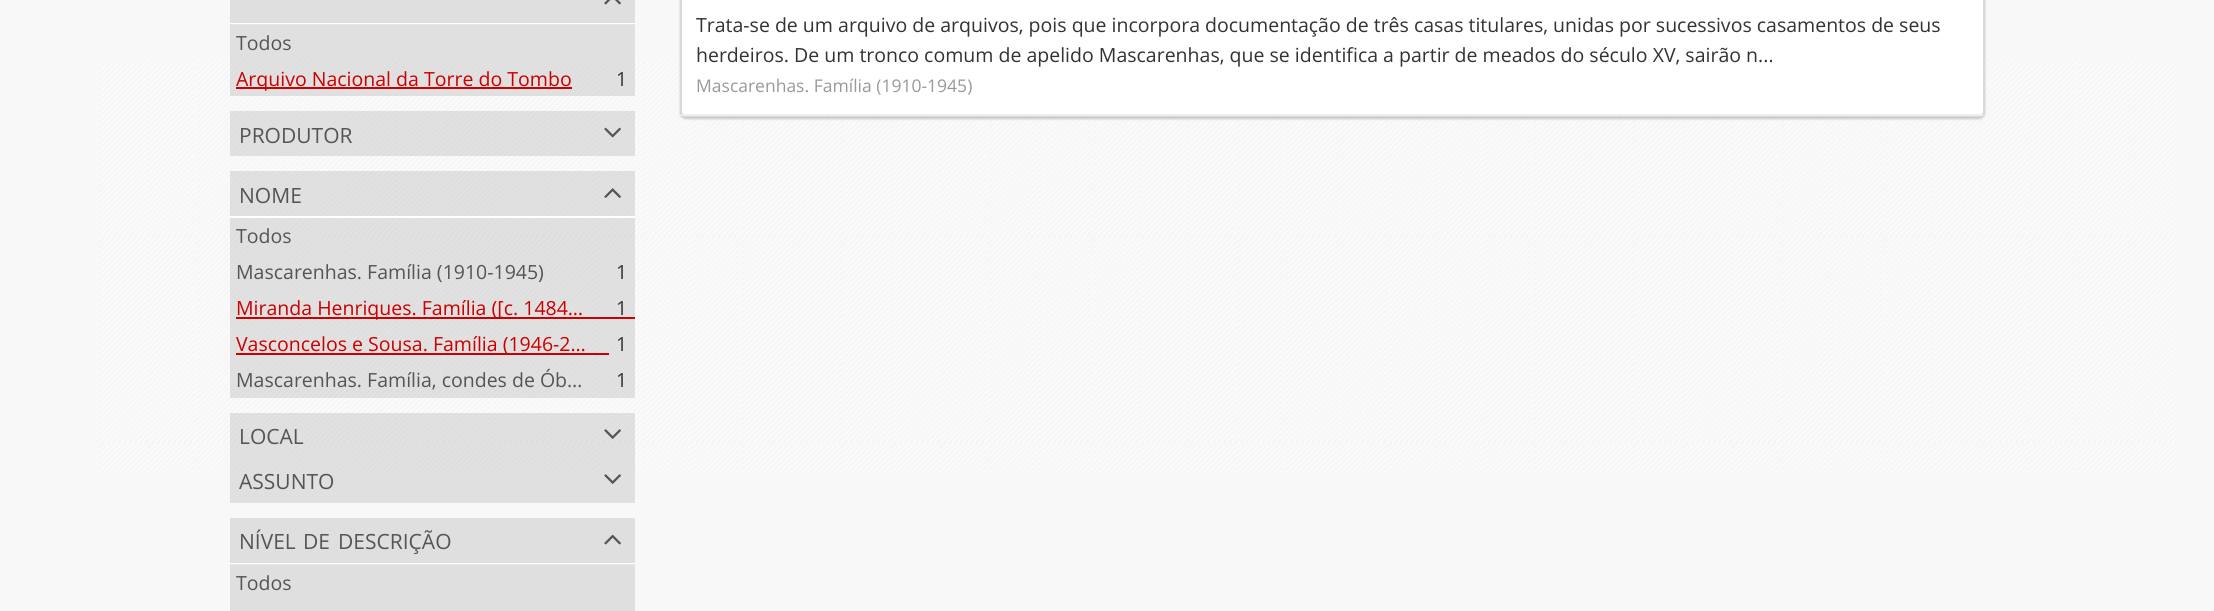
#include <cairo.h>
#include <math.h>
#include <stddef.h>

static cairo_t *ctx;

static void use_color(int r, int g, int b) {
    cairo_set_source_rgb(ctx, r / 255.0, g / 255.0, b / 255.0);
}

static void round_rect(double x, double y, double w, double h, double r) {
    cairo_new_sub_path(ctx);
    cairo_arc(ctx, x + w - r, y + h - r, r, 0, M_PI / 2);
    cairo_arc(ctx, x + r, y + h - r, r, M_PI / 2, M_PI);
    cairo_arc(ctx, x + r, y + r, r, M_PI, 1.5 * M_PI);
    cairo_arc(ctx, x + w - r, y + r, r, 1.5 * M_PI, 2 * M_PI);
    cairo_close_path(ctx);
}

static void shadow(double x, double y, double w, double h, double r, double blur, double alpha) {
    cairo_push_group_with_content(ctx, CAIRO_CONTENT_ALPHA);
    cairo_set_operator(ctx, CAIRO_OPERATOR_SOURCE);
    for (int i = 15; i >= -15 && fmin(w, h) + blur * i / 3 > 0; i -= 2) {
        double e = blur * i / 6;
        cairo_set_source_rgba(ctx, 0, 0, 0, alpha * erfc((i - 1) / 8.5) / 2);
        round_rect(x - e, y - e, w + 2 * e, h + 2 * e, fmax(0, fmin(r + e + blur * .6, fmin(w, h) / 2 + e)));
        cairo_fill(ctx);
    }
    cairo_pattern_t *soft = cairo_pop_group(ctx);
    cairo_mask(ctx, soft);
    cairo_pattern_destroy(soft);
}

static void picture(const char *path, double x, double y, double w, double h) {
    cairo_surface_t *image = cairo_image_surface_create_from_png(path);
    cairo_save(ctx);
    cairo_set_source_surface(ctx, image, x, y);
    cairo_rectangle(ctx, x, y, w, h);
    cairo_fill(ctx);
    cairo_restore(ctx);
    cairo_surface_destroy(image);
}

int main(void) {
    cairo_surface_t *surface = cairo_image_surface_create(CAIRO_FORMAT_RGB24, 2214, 611);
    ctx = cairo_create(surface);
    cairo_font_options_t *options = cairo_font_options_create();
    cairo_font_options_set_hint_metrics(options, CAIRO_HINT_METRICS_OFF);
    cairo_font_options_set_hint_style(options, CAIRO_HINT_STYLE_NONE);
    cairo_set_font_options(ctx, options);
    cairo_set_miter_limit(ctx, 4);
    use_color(248, 248, 248);
    cairo_paint(ctx);
    use_color(223, 223, 223);
    cairo_rectangle(ctx, 230, 565, 405, 46);
    cairo_fill(ctx);
    picture("img1.png", 98, 60, 2080, 412);
    use_color(255, 255, 255);
    cairo_rectangle(ctx, 230, 23, 405, 2);
    cairo_fill(ctx);
    use_color(223, 223, 223);
    cairo_rectangle(ctx, 230, 0, 405, 23);
    cairo_fill(ctx);
    picture("img2.png", 604, 0, 17, 5);
    cairo_set_source_rgba(ctx, 0, 0, 0, 0.1);
    cairo_rectangle(ctx, 230, 24, 405, 72);
    cairo_fill(ctx);
    cairo_select_font_face(ctx, "Open Sans", CAIRO_FONT_SLANT_NORMAL, CAIRO_FONT_WEIGHT_NORMAL);
    cairo_set_font_size(ctx, 19.5);
    use_color(85, 85, 85);
    cairo_move_to(ctx, 236, 50);
    cairo_show_text(ctx, "Todos");
    use_color(204, 0, 0);
    cairo_rectangle(ctx, 236, 87, 336, 2);
    cairo_fill(ctx);
    cairo_move_to(ctx, 236, 86);
    cairo_show_text(ctx, "Arquivo Nacional da Torre do Tombo");
    use_color(51, 51, 51);
    cairo_move_to(ctx, 616, 86);
    cairo_show_text(ctx, "1");
    cairo_set_source_rgba(ctx, 0, 0, 0, 0.1);
    cairo_rectangle(ctx, 230, 111, 405, 45);
    cairo_fill(ctx);
    cairo_set_font_size(ctx, 21);
    use_color(85, 85, 85);
    cairo_move_to(ctx, 239, 143);
    cairo_show_text(ctx, "PRODUTOR");
    picture("img3.png", 604, 127, 17, 11);
    use_color(255, 255, 255);
    cairo_rectangle(ctx, 230, 216, 405, 2);
    cairo_fill(ctx);
    cairo_set_source_rgba(ctx, 0, 0, 0, 0.1);
    cairo_rectangle(ctx, 230, 171, 405, 45);
    cairo_fill(ctx);
    use_color(85, 85, 85);
    cairo_move_to(ctx, 239, 203);
    cairo_show_text(ctx, "NOME");
    picture("img4.png", 604, 188, 17, 10);
    cairo_set_source_rgba(ctx, 0, 0, 0, 0.1);
    cairo_rectangle(ctx, 230, 218, 405, 180);
    cairo_fill(ctx);
    cairo_set_font_size(ctx, 19.5);
    use_color(85, 85, 85);
    cairo_move_to(ctx, 236, 243);
    cairo_show_text(ctx, "Todos");
    cairo_move_to(ctx, 236, 279);
    cairo_show_text(ctx, "Mascarenhas. Família (1910-1945)");
    use_color(51, 51, 51);
    cairo_move_to(ctx, 616, 279);
    cairo_show_text(ctx, "1");
    use_color(204, 0, 0);
    cairo_rectangle(ctx, 236, 317, 399, 2);
    cairo_fill(ctx);
    cairo_move_to(ctx, 236, 315);
    cairo_show_text(ctx, "Miranda Henriques. Família ([c. 1484…");
    use_color(51, 51, 51);
    cairo_move_to(ctx, 616, 315);
    cairo_show_text(ctx, "1");
    use_color(204, 0, 0);
    cairo_rectangle(ctx, 236, 353, 373, 2);
    cairo_fill(ctx);
    cairo_move_to(ctx, 236, 351);
    cairo_show_text(ctx, "Vasconcelos e Sousa. Família (1946-2…");
    use_color(51, 51, 51);
    cairo_move_to(ctx, 616, 351);
    cairo_show_text(ctx, "1");
    use_color(85, 85, 85);
    cairo_move_to(ctx, 236, 387);
    cairo_show_text(ctx, "Mascarenhas. Família, condes de Ób…");
    use_color(51, 51, 51);
    cairo_move_to(ctx, 616, 387);
    cairo_show_text(ctx, "1");
    cairo_set_source_rgba(ctx, 0, 0, 0, 0.1);
    cairo_rectangle(ctx, 230, 413, 405, 45);
    cairo_fill(ctx);
    cairo_set_font_size(ctx, 21);
    use_color(85, 85, 85);
    cairo_move_to(ctx, 239, 444);
    cairo_show_text(ctx, "LOCAL");
    picture("img5.png", 604, 429, 17, 10);
    cairo_set_source_rgba(ctx, 0, 0, 0, 0.1);
    cairo_rectangle(ctx, 230, 458, 405, 45);
    cairo_fill(ctx);
    use_color(85, 85, 85);
    cairo_move_to(ctx, 239, 489);
    cairo_show_text(ctx, "ASSUNTO");
    picture("img6.png", 604, 474, 17, 10);
    use_color(255, 255, 255);
    cairo_rectangle(ctx, 230, 563, 405, 1);
    cairo_fill(ctx);
    use_color(230, 230, 230);
    cairo_rectangle(ctx, 230, 564, 405, 1);
    cairo_fill(ctx);
    use_color(223, 223, 223);
    cairo_rectangle(ctx, 230, 518, 405, 45);
    cairo_fill(ctx);
    use_color(85, 85, 85);
    cairo_move_to(ctx, 239, 549);
    cairo_show_text(ctx, "NÍVEL");
    cairo_move_to(ctx, 303, 549);
    cairo_show_text(ctx, "DE");
    cairo_move_to(ctx, 338, 549);
    cairo_show_text(ctx, "DESCRIÇÃO");
    picture("img7.png", 604, 534, 17, 11);
    cairo_set_font_size(ctx, 19.5);
    cairo_move_to(ctx, 236, 590);
    cairo_show_text(ctx, "Todos");
    use_color(0, 0, 0);
    shadow(680, -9, 1305, 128, 6, 1, 0.2);
    use_color(255, 255, 255);
    round_rect(681, -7, 1303, 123, 5);
    cairo_fill_preserve(ctx);
    use_color(217, 217, 217);
    cairo_stroke(ctx);
    use_color(238, 238, 238);
    cairo_rectangle(ctx, 681, 114, 1302, 2);
    cairo_fill(ctx);
    use_color(51, 51, 51);
    cairo_move_to(ctx, 696, 32);
    cairo_show_text(ctx, "Trata-se de um arquivo de arquivos, pois que incorpora documentação de três casas titulares, unidas por sucessivos casamentos de seus");
    cairo_move_to(ctx, 696, 62);
    cairo_show_text(ctx, "herdeiros. De um tronco comum de apelido Mascarenhas, que se identifica a partir de meados do século XV, sairão n...");
    cairo_set_font_size(ctx, 17.5);
    use_color(153, 153, 153);
    cairo_move_to(ctx, 696, 92);
    cairo_show_text(ctx, "Mascarenhas. Família (1910-1945)");
    cairo_surface_write_to_png(surface, "result.png");
    cairo_font_options_destroy(options);
    cairo_destroy(ctx);
    cairo_surface_destroy(surface);
    return 0;
}
